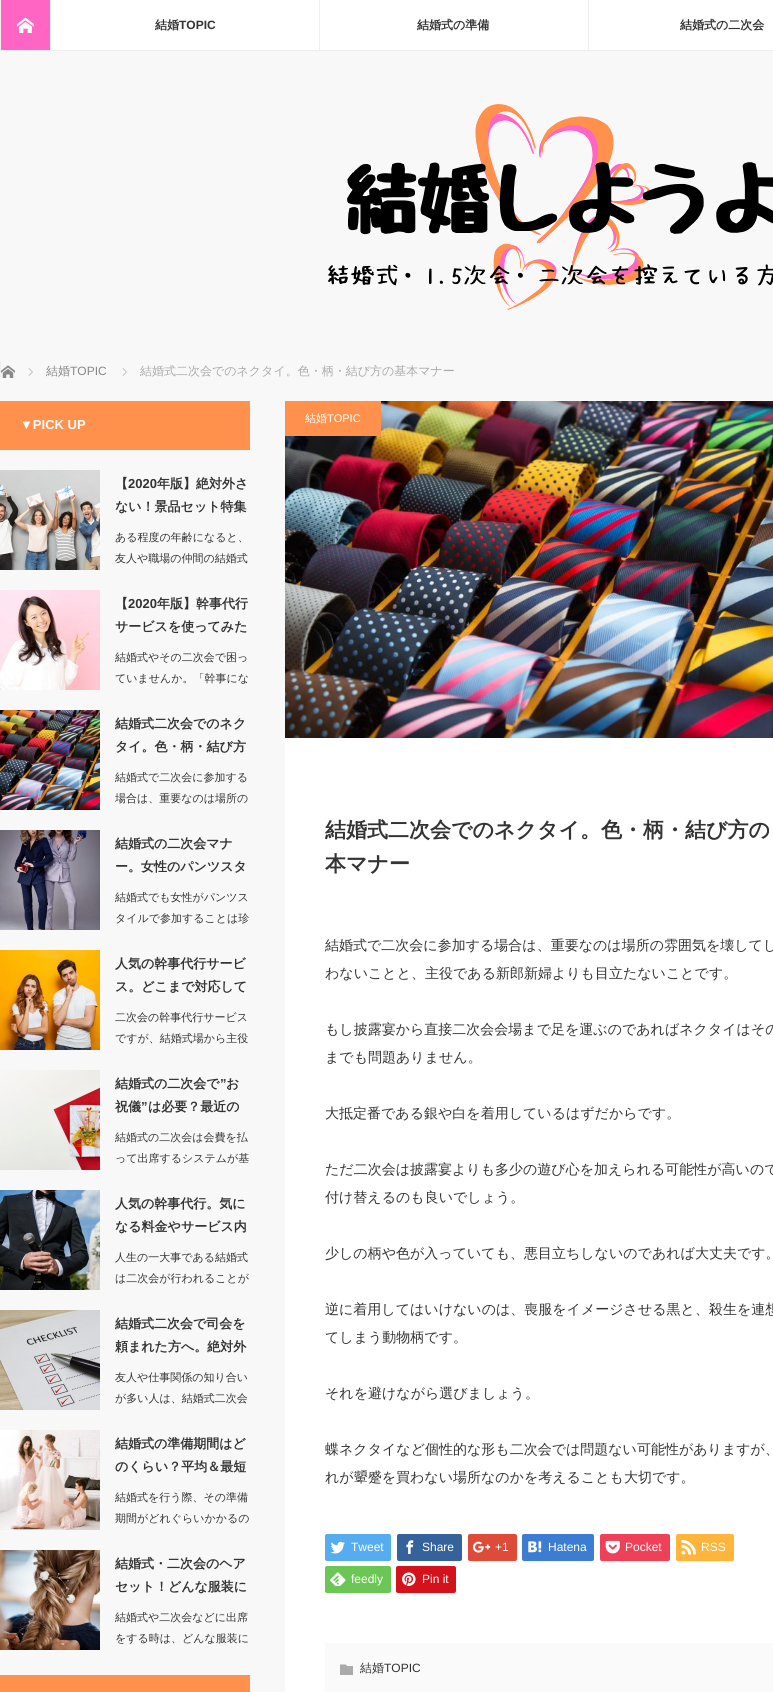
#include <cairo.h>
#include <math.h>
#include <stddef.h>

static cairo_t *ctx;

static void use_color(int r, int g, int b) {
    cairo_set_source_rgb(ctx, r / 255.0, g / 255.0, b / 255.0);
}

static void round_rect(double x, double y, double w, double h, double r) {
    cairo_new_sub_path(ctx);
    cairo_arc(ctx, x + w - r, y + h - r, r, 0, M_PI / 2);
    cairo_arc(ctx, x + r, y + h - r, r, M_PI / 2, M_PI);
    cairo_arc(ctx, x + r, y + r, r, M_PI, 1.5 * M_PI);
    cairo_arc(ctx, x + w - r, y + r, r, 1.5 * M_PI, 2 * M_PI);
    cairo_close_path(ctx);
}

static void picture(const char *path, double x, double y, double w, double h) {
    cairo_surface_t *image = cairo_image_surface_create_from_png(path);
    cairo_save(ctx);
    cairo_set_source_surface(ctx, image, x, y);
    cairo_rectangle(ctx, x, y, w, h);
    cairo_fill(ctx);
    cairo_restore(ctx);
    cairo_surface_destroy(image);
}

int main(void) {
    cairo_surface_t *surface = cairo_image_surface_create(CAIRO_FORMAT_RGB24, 773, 1692);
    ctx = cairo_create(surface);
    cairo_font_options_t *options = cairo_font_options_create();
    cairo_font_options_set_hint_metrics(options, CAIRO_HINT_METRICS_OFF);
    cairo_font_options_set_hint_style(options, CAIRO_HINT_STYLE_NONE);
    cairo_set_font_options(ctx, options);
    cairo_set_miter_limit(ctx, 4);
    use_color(248, 248, 248);
    cairo_paint(ctx);
    use_color(255, 255, 255);
    cairo_rectangle(ctx, 51, 0, 722, 50);
    cairo_fill(ctx);
    use_color(238, 238, 238);
    cairo_rectangle(ctx, 0, 50, 773, 1);
    cairo_fill(ctx);
    use_color(255, 102, 196);
    cairo_rectangle(ctx, 1, 0, 49, 50);
    cairo_fill(ctx);
    use_color(238, 238, 238);
    cairo_rectangle(ctx, 0, 0, 1, 50);
    cairo_fill(ctx);
    picture("img1.png", 17, 17, 17, 16);
    cairo_rectangle(ctx, 50, 0, 1, 50);
    cairo_fill(ctx);
    cairo_select_font_face(ctx, "WenQuanYi Zen Hei", CAIRO_FONT_SLANT_NORMAL, CAIRO_FONT_WEIGHT_BOLD);
    cairo_set_font_size(ctx, 12);
    use_color(51, 51, 51);
    cairo_move_to(ctx, 155, 29);
    cairo_show_text(ctx, "結婚");
    cairo_select_font_face(ctx, "Liberation Sans", CAIRO_FONT_SLANT_NORMAL, CAIRO_FONT_WEIGHT_BOLD);
    cairo_move_to(ctx, 179, 29);
    cairo_show_text(ctx, "TOPIC");
    use_color(238, 238, 238);
    cairo_rectangle(ctx, 319, 0, 1, 50);
    cairo_fill(ctx);
    cairo_select_font_face(ctx, "WenQuanYi Zen Hei", CAIRO_FONT_SLANT_NORMAL, CAIRO_FONT_WEIGHT_BOLD);
    use_color(51, 51, 51);
    cairo_move_to(ctx, 417, 29);
    cairo_show_text(ctx, "結婚式の準備");
    use_color(238, 238, 238);
    cairo_rectangle(ctx, 588, 0, 1, 50);
    cairo_fill(ctx);
    use_color(51, 51, 51);
    cairo_move_to(ctx, 680, 29);
    cairo_show_text(ctx, "結婚式の二次会");
    picture("img2.png", 328, 104, 445, 206);
    use_color(238, 238, 238);
    cairo_rectangle(ctx, 0, 362, 1, 15);
    cairo_fill(ctx);
    picture("img3.png", 1, 365, 14, 13);
    picture("img4.png", 28, 368, 5, 8);
    cairo_select_font_face(ctx, "WenQuanYi Zen Hei Medium", CAIRO_FONT_SLANT_NORMAL, CAIRO_FONT_WEIGHT_NORMAL);
    use_color(136, 136, 136);
    cairo_move_to(ctx, 46, 375);
    cairo_show_text(ctx, "結婚");
    cairo_select_font_face(ctx, "Liberation Sans", CAIRO_FONT_SLANT_NORMAL, CAIRO_FONT_WEIGHT_NORMAL);
    cairo_move_to(ctx, 70, 375);
    cairo_show_text(ctx, "TOPIC");
    picture("img4.png", 122, 368, 5, 8);
    cairo_select_font_face(ctx, "WenQuanYi Zen Hei Medium", CAIRO_FONT_SLANT_NORMAL, CAIRO_FONT_WEIGHT_NORMAL);
    use_color(170, 170, 170);
    cairo_move_to(ctx, 140, 375);
    cairo_show_text(ctx, "結婚式二次会でのネクタイ。色・柄・結び方の基本マナー");
    use_color(255, 145, 77);
    cairo_rectangle(ctx, 0, 401, 250, 49);
    cairo_fill(ctx);
    cairo_select_font_face(ctx, "Liberation Sans", CAIRO_FONT_SLANT_NORMAL, CAIRO_FONT_WEIGHT_BOLD);
    cairo_set_font_size(ctx, 13);
    use_color(255, 255, 255);
    cairo_move_to(ctx, 20, 429);
    cairo_show_text(ctx, "▼PICK UP");
    picture("img5.png", 0, 470, 100, 100);
    cairo_select_font_face(ctx, "WenQuanYi Zen Hei", CAIRO_FONT_SLANT_NORMAL, CAIRO_FONT_WEIGHT_BOLD);
    use_color(51, 51, 51);
    cairo_move_to(ctx, 115, 488);
    cairo_show_text(ctx, "【");
    cairo_select_font_face(ctx, "Liberation Sans", CAIRO_FONT_SLANT_NORMAL, CAIRO_FONT_WEIGHT_BOLD);
    cairo_move_to(ctx, 128, 488);
    cairo_show_text(ctx, "2020");
    cairo_select_font_face(ctx, "WenQuanYi Zen Hei", CAIRO_FONT_SLANT_NORMAL, CAIRO_FONT_WEIGHT_BOLD);
    cairo_move_to(ctx, 157, 488);
    cairo_show_text(ctx, "年版】絶対外さ");
    cairo_move_to(ctx, 115, 511);
    cairo_show_text(ctx, "ない！景品セット特集");
    cairo_select_font_face(ctx, "WenQuanYi Zen Hei Medium", CAIRO_FONT_SLANT_NORMAL, CAIRO_FONT_WEIGHT_NORMAL);
    cairo_set_font_size(ctx, 11);
    cairo_move_to(ctx, 115, 541);
    cairo_show_text(ctx, "ある程度の年齢になると、");
    cairo_move_to(ctx, 115, 562);
    cairo_show_text(ctx, "友人や職場の仲間の結婚式");
    picture("img6.png", 0, 590, 100, 100);
    cairo_select_font_face(ctx, "WenQuanYi Zen Hei", CAIRO_FONT_SLANT_NORMAL, CAIRO_FONT_WEIGHT_BOLD);
    cairo_set_font_size(ctx, 13);
    cairo_move_to(ctx, 115, 608);
    cairo_show_text(ctx, "【");
    cairo_select_font_face(ctx, "Liberation Sans", CAIRO_FONT_SLANT_NORMAL, CAIRO_FONT_WEIGHT_BOLD);
    cairo_move_to(ctx, 128, 608);
    cairo_show_text(ctx, "2020");
    cairo_select_font_face(ctx, "WenQuanYi Zen Hei", CAIRO_FONT_SLANT_NORMAL, CAIRO_FONT_WEIGHT_BOLD);
    cairo_move_to(ctx, 157, 608);
    cairo_show_text(ctx, "年版】幹事代行");
    cairo_move_to(ctx, 115, 631);
    cairo_show_text(ctx, "サービスを使ってみた");
    cairo_select_font_face(ctx, "WenQuanYi Zen Hei Medium", CAIRO_FONT_SLANT_NORMAL, CAIRO_FONT_WEIGHT_NORMAL);
    cairo_set_font_size(ctx, 11);
    cairo_move_to(ctx, 115, 661);
    cairo_show_text(ctx, "結婚式やその二次会で困っ");
    cairo_move_to(ctx, 115, 682);
    cairo_show_text(ctx, "ていませんか。「幹事にな");
    picture("img7.png", 0, 710, 100, 100);
    cairo_select_font_face(ctx, "WenQuanYi Zen Hei", CAIRO_FONT_SLANT_NORMAL, CAIRO_FONT_WEIGHT_BOLD);
    cairo_set_font_size(ctx, 13);
    cairo_move_to(ctx, 115, 728);
    cairo_show_text(ctx, "結婚式二次会でのネク");
    cairo_move_to(ctx, 115, 751);
    cairo_show_text(ctx, "タイ。色・柄・結び方");
    cairo_select_font_face(ctx, "WenQuanYi Zen Hei Medium", CAIRO_FONT_SLANT_NORMAL, CAIRO_FONT_WEIGHT_NORMAL);
    cairo_set_font_size(ctx, 11);
    cairo_move_to(ctx, 115, 781);
    cairo_show_text(ctx, "結婚式で二次会に参加する");
    cairo_move_to(ctx, 115, 802);
    cairo_show_text(ctx, "場合は、重要なのは場所の");
    picture("img8.png", 0, 830, 100, 100);
    cairo_select_font_face(ctx, "WenQuanYi Zen Hei", CAIRO_FONT_SLANT_NORMAL, CAIRO_FONT_WEIGHT_BOLD);
    cairo_set_font_size(ctx, 13);
    cairo_move_to(ctx, 115, 848);
    cairo_show_text(ctx, "結婚式の二次会マナ");
    cairo_move_to(ctx, 115, 871);
    cairo_show_text(ctx, "ー。女性のパンツスタ");
    cairo_select_font_face(ctx, "WenQuanYi Zen Hei Medium", CAIRO_FONT_SLANT_NORMAL, CAIRO_FONT_WEIGHT_NORMAL);
    cairo_set_font_size(ctx, 11);
    cairo_move_to(ctx, 115, 901);
    cairo_show_text(ctx, "結婚式でも女性がパンツス");
    cairo_move_to(ctx, 115, 922);
    cairo_show_text(ctx, "タイルで参加することは珍");
    picture("img9.png", 0, 950, 100, 100);
    cairo_select_font_face(ctx, "WenQuanYi Zen Hei", CAIRO_FONT_SLANT_NORMAL, CAIRO_FONT_WEIGHT_BOLD);
    cairo_set_font_size(ctx, 13);
    cairo_move_to(ctx, 115, 968);
    cairo_show_text(ctx, "人気の幹事代行サービ");
    cairo_move_to(ctx, 115, 991);
    cairo_show_text(ctx, "ス。どこまで対応して");
    cairo_select_font_face(ctx, "WenQuanYi Zen Hei Medium", CAIRO_FONT_SLANT_NORMAL, CAIRO_FONT_WEIGHT_NORMAL);
    cairo_set_font_size(ctx, 11);
    cairo_move_to(ctx, 115, 1021);
    cairo_show_text(ctx, "二次会の幹事代行サービス");
    cairo_move_to(ctx, 115, 1042);
    cairo_show_text(ctx, "ですが、結婚式場から主役");
    picture("img10.png", 0, 1070, 100, 100);
    cairo_select_font_face(ctx, "WenQuanYi Zen Hei", CAIRO_FONT_SLANT_NORMAL, CAIRO_FONT_WEIGHT_BOLD);
    cairo_set_font_size(ctx, 13);
    cairo_move_to(ctx, 115, 1088);
    cairo_show_text(ctx, "結婚式の二次会で");
    cairo_select_font_face(ctx, "Liberation Sans", CAIRO_FONT_SLANT_NORMAL, CAIRO_FONT_WEIGHT_BOLD);
    cairo_move_to(ctx, 220, 1088);
    cairo_show_text(ctx, "”");
    cairo_select_font_face(ctx, "WenQuanYi Zen Hei", CAIRO_FONT_SLANT_NORMAL, CAIRO_FONT_WEIGHT_BOLD);
    cairo_move_to(ctx, 226, 1088);
    cairo_show_text(ctx, "お");
    cairo_move_to(ctx, 115, 1111);
    cairo_show_text(ctx, "祝儀");
    cairo_select_font_face(ctx, "Liberation Sans", CAIRO_FONT_SLANT_NORMAL, CAIRO_FONT_WEIGHT_BOLD);
    cairo_move_to(ctx, 141, 1111);
    cairo_show_text(ctx, "”");
    cairo_select_font_face(ctx, "WenQuanYi Zen Hei", CAIRO_FONT_SLANT_NORMAL, CAIRO_FONT_WEIGHT_BOLD);
    cairo_move_to(ctx, 148, 1111);
    cairo_show_text(ctx, "は必要？最近の");
    cairo_select_font_face(ctx, "WenQuanYi Zen Hei Medium", CAIRO_FONT_SLANT_NORMAL, CAIRO_FONT_WEIGHT_NORMAL);
    cairo_set_font_size(ctx, 11);
    cairo_move_to(ctx, 115, 1141);
    cairo_show_text(ctx, "結婚式の二次会は会費を払");
    cairo_move_to(ctx, 115, 1162);
    cairo_show_text(ctx, "って出席するシステムが基");
    picture("img11.png", 0, 1190, 100, 100);
    cairo_select_font_face(ctx, "WenQuanYi Zen Hei", CAIRO_FONT_SLANT_NORMAL, CAIRO_FONT_WEIGHT_BOLD);
    cairo_set_font_size(ctx, 13);
    cairo_move_to(ctx, 115, 1208);
    cairo_show_text(ctx, "人気の幹事代行。気に");
    cairo_move_to(ctx, 115, 1231);
    cairo_show_text(ctx, "なる料金やサービス内");
    cairo_select_font_face(ctx, "WenQuanYi Zen Hei Medium", CAIRO_FONT_SLANT_NORMAL, CAIRO_FONT_WEIGHT_NORMAL);
    cairo_set_font_size(ctx, 11);
    cairo_move_to(ctx, 115, 1261);
    cairo_show_text(ctx, "人生の一大事である結婚式");
    cairo_move_to(ctx, 115, 1282);
    cairo_show_text(ctx, "は二次会が行われることが");
    picture("img12.png", 0, 1310, 100, 100);
    cairo_select_font_face(ctx, "WenQuanYi Zen Hei", CAIRO_FONT_SLANT_NORMAL, CAIRO_FONT_WEIGHT_BOLD);
    cairo_set_font_size(ctx, 13);
    cairo_move_to(ctx, 115, 1328);
    cairo_show_text(ctx, "結婚式二次会で司会を");
    cairo_move_to(ctx, 115, 1351);
    cairo_show_text(ctx, "頼まれた方へ。絶対外");
    cairo_select_font_face(ctx, "WenQuanYi Zen Hei Medium", CAIRO_FONT_SLANT_NORMAL, CAIRO_FONT_WEIGHT_NORMAL);
    cairo_set_font_size(ctx, 11);
    cairo_move_to(ctx, 115, 1381);
    cairo_show_text(ctx, "友人や仕事関係の知り合い");
    cairo_move_to(ctx, 115, 1402);
    cairo_show_text(ctx, "が多い人は、結婚式二次会");
    picture("img13.png", 0, 1430, 100, 100);
    cairo_select_font_face(ctx, "WenQuanYi Zen Hei", CAIRO_FONT_SLANT_NORMAL, CAIRO_FONT_WEIGHT_BOLD);
    cairo_set_font_size(ctx, 13);
    cairo_move_to(ctx, 115, 1448);
    cairo_show_text(ctx, "結婚式の準備期間はど");
    cairo_move_to(ctx, 115, 1471);
    cairo_show_text(ctx, "のくらい？平均＆最短");
    cairo_select_font_face(ctx, "WenQuanYi Zen Hei Medium", CAIRO_FONT_SLANT_NORMAL, CAIRO_FONT_WEIGHT_NORMAL);
    cairo_set_font_size(ctx, 11);
    cairo_move_to(ctx, 115, 1501);
    cairo_show_text(ctx, "結婚式を行う際、その準備");
    cairo_move_to(ctx, 115, 1522);
    cairo_show_text(ctx, "期間がどれぐらいかかるの");
    picture("img14.png", 0, 1550, 100, 100);
    cairo_select_font_face(ctx, "WenQuanYi Zen Hei", CAIRO_FONT_SLANT_NORMAL, CAIRO_FONT_WEIGHT_BOLD);
    cairo_set_font_size(ctx, 13);
    cairo_move_to(ctx, 115, 1568);
    cairo_show_text(ctx, "結婚式・二次会のヘア");
    cairo_move_to(ctx, 115, 1591);
    cairo_show_text(ctx, "セット！どんな服装に");
    cairo_select_font_face(ctx, "WenQuanYi Zen Hei Medium", CAIRO_FONT_SLANT_NORMAL, CAIRO_FONT_WEIGHT_NORMAL);
    cairo_set_font_size(ctx, 11);
    cairo_move_to(ctx, 115, 1621);
    cairo_show_text(ctx, "結婚式や二次会などに出席");
    cairo_move_to(ctx, 115, 1642);
    cairo_show_text(ctx, "をする時は、どんな服装に");
    use_color(255, 145, 77);
    cairo_rectangle(ctx, 0, 1675, 250, 17);
    cairo_fill(ctx);
    use_color(255, 255, 255);
    cairo_rectangle(ctx, 285, 738, 488, 954);
    cairo_fill(ctx);
    picture("img15.png", 285, 401, 488, 337);
    use_color(255, 145, 77);
    cairo_rectangle(ctx, 285, 401, 96, 35);
    cairo_fill(ctx);
    use_color(255, 255, 255);
    cairo_move_to(ctx, 305, 422);
    cairo_show_text(ctx, "結婚");
    cairo_select_font_face(ctx, "Liberation Sans", CAIRO_FONT_SLANT_NORMAL, CAIRO_FONT_WEIGHT_NORMAL);
    cairo_move_to(ctx, 327, 422);
    cairo_show_text(ctx, "TOPIC");
    cairo_select_font_face(ctx, "WenQuanYi Zen Hei", CAIRO_FONT_SLANT_NORMAL, CAIRO_FONT_WEIGHT_BOLD);
    cairo_set_font_size(ctx, 21);
    use_color(51, 51, 51);
    cairo_move_to(ctx, 325, 837);
    cairo_show_text(ctx, "結婚式二次会でのネクタイ。色・柄・結び方の");
    cairo_move_to(ctx, 325, 871);
    cairo_show_text(ctx, "本マナー");
    cairo_select_font_face(ctx, "WenQuanYi Zen Hei Medium", CAIRO_FONT_SLANT_NORMAL, CAIRO_FONT_WEIGHT_NORMAL);
    cairo_set_font_size(ctx, 14);
    cairo_move_to(ctx, 325, 950);
    cairo_show_text(ctx, "結婚式で二次会に参加する場合は、重要なのは場所の雰囲気を壊してし");
    cairo_move_to(ctx, 325, 978);
    cairo_show_text(ctx, "わないことと、主役である新郎新婦よりも目立たないことです。");
    cairo_move_to(ctx, 325, 1034);
    cairo_show_text(ctx, "もし披露宴から直接二次会会場まで足を運ぶのであればネクタイはその");
    cairo_move_to(ctx, 325, 1062);
    cairo_show_text(ctx, "までも問題ありません。");
    cairo_move_to(ctx, 325, 1118);
    cairo_show_text(ctx, "大抵定番である銀や白を着用しているはずだからです。");
    cairo_move_to(ctx, 325, 1174);
    cairo_show_text(ctx, "ただ二次会は披露宴よりも多少の遊び心を加えられる可能性が高いので");
    cairo_move_to(ctx, 325, 1202);
    cairo_show_text(ctx, "付け替えるのも良いでしょう。");
    cairo_move_to(ctx, 325, 1258);
    cairo_show_text(ctx, "少しの柄や色が入っていても、悪目立ちしないのであれば大丈夫です。");
    cairo_move_to(ctx, 325, 1314);
    cairo_show_text(ctx, "逆に着用してはいけないのは、喪服をイメージさせる黒と、殺生を連想");
    cairo_move_to(ctx, 325, 1342);
    cairo_show_text(ctx, "てしまう動物柄です。");
    cairo_move_to(ctx, 325, 1398);
    cairo_show_text(ctx, "それを避けながら選びましょう。");
    cairo_move_to(ctx, 325, 1454);
    cairo_show_text(ctx, "蝶ネクタイなど個性的な形も二次会では問題ない可能性がありますが、");
    cairo_move_to(ctx, 325, 1482);
    cairo_show_text(ctx, "れが顰蹙を買わない場所なのかを考えることも大切です。");
    use_color(247, 247, 247);
    cairo_new_path(ctx);
    cairo_move_to(ctx, 325, 1559);
    cairo_curve_to(ctx, 325, 1565, 334, 1562, 337, 1562);
    cairo_line_to(ctx, 379, 1562);
    cairo_curve_to(ctx, 382, 1562, 391, 1565, 391, 1559);
    cairo_line_to(ctx, 390, 1561);
    cairo_line_to(ctx, 337, 1561);
    cairo_curve_to(ctx, 333, 1561, 325, 1563, 325, 1559);
    cairo_close_path(ctx);
    cairo_fill(ctx);
    use_color(85, 172, 238);
    round_rect(325, 1534, 66, 27, 2);
    cairo_fill(ctx);
    picture("img16.png", 330, 1541, 15, 13);
    cairo_select_font_face(ctx, "Liberation Sans", CAIRO_FONT_SLANT_NORMAL, CAIRO_FONT_WEIGHT_NORMAL);
    cairo_set_font_size(ctx, 12);
    use_color(255, 255, 255);
    cairo_move_to(ctx, 351, 1551);
    cairo_show_text(ctx, "Tweet");
    use_color(247, 247, 247);
    cairo_new_path(ctx);
    cairo_move_to(ctx, 397, 1559);
    cairo_curve_to(ctx, 397, 1565, 405, 1562, 409, 1562);
    cairo_line_to(ctx, 450, 1562);
    cairo_curve_to(ctx, 454, 1562, 462, 1565, 462, 1559);
    cairo_line_to(ctx, 461, 1561);
    cairo_line_to(ctx, 409, 1561);
    cairo_curve_to(ctx, 405, 1561, 397, 1563, 397, 1559);
    cairo_close_path(ctx);
    cairo_fill(ctx);
    use_color(53, 98, 154);
    round_rect(397, 1534, 65, 27, 2);
    cairo_fill(ctx);
    picture("img17.png", 406, 1540, 8, 14);
    use_color(255, 255, 255);
    cairo_move_to(ctx, 422, 1551);
    cairo_show_text(ctx, "Share");
    use_color(247, 247, 247);
    cairo_new_path(ctx);
    cairo_move_to(ctx, 468, 1559);
    cairo_curve_to(ctx, 468, 1564, 474, 1562, 478, 1562);
    cairo_line_to(ctx, 508, 1562);
    cairo_curve_to(ctx, 511, 1562, 517, 1564, 517, 1559);
    cairo_curve_to(ctx, 517, 1560, 516, 1561, 515, 1561);
    cairo_line_to(ctx, 470, 1561);
    cairo_curve_to(ctx, 469, 1561, 468, 1560, 468, 1559);
    cairo_close_path(ctx);
    cairo_fill(ctx);
    use_color(221, 75, 57);
    round_rect(468, 1534, 49, 27, 2);
    cairo_fill(ctx);
    picture("img18.png", 473, 1541, 18, 12);
    use_color(255, 255, 255);
    cairo_move_to(ctx, 495, 1551);
    cairo_show_text(ctx, "+1");
    use_color(247, 247, 247);
    cairo_new_path(ctx);
    cairo_move_to(ctx, 522, 1559);
    cairo_curve_to(ctx, 522, 1565, 532, 1562, 535, 1562);
    cairo_line_to(ctx, 581, 1562);
    cairo_curve_to(ctx, 584, 1562, 594, 1565, 594, 1559);
    cairo_curve_to(ctx, 594, 1560, 593, 1561, 592, 1561);
    cairo_line_to(ctx, 523, 1561);
    cairo_close_path(ctx);
    cairo_fill(ctx);
    use_color(60, 125, 209);
    round_rect(522, 1534, 72, 27, 2);
    cairo_fill(ctx);
    picture("img19.png", 528, 1541, 14, 12);
    use_color(255, 255, 255);
    cairo_move_to(ctx, 548, 1551);
    cairo_show_text(ctx, "Hatena");
    use_color(247, 247, 247);
    cairo_new_path(ctx);
    cairo_move_to(ctx, 600, 1559);
    cairo_curve_to(ctx, 600, 1565, 609, 1562, 613, 1562);
    cairo_line_to(ctx, 657, 1562);
    cairo_curve_to(ctx, 661, 1562, 670, 1565, 670, 1559);
    cairo_curve_to(ctx, 670, 1560, 669, 1561, 668, 1561);
    cairo_line_to(ctx, 601, 1561);
    cairo_close_path(ctx);
    cairo_fill(ctx);
    use_color(238, 64, 86);
    round_rect(600, 1534, 70, 27, 2);
    cairo_fill(ctx);
    picture("img20.png", 605, 1540, 15, 14);
    use_color(255, 255, 255);
    cairo_move_to(ctx, 625, 1551);
    cairo_show_text(ctx, "Pocket");
    use_color(247, 247, 247);
    cairo_new_path(ctx);
    cairo_move_to(ctx, 676, 1559);
    cairo_curve_to(ctx, 676, 1564, 683, 1562, 687, 1562);
    cairo_line_to(ctx, 723, 1562);
    cairo_curve_to(ctx, 727, 1562, 734, 1564, 734, 1559);
    cairo_line_to(ctx, 733, 1561);
    cairo_line_to(ctx, 677, 1561);
    cairo_close_path(ctx);
    cairo_fill(ctx);
    use_color(255, 181, 60);
    round_rect(676, 1534, 58, 27, 2);
    cairo_fill(ctx);
    picture("img21.png", 681, 1539, 16, 16);
    use_color(255, 255, 255);
    cairo_move_to(ctx, 701, 1551);
    cairo_show_text(ctx, "RSS");
    use_color(247, 247, 247);
    cairo_new_path(ctx);
    cairo_move_to(ctx, 325, 1591);
    cairo_curve_to(ctx, 325, 1597, 334, 1594, 337, 1594);
    cairo_line_to(ctx, 379, 1594);
    cairo_curve_to(ctx, 382, 1594, 391, 1597, 391, 1591);
    cairo_line_to(ctx, 390, 1593);
    cairo_line_to(ctx, 337, 1593);
    cairo_curve_to(ctx, 333, 1593, 325, 1595, 325, 1591);
    cairo_close_path(ctx);
    cairo_fill(ctx);
    use_color(108, 198, 85);
    round_rect(325, 1566, 66, 27, 2);
    cairo_fill(ctx);
    picture("img22.png", 330, 1572, 16, 14);
    use_color(255, 255, 255);
    cairo_move_to(ctx, 351, 1583);
    cairo_show_text(ctx, "feedly");
    use_color(247, 247, 247);
    cairo_new_path(ctx);
    cairo_move_to(ctx, 396, 1591);
    cairo_curve_to(ctx, 396, 1597, 404, 1594, 407, 1594);
    cairo_line_to(ctx, 445, 1594);
    cairo_curve_to(ctx, 448, 1594, 456, 1597, 456, 1591);
    cairo_line_to(ctx, 455, 1593);
    cairo_line_to(ctx, 397, 1593);
    cairo_close_path(ctx);
    cairo_fill(ctx);
    use_color(212, 18, 28);
    round_rect(396, 1566, 60, 27, 2);
    cairo_fill(ctx);
    picture("img23.png", 402, 1572, 14, 14);
    use_color(255, 255, 255);
    cairo_move_to(ctx, 422, 1583);
    cairo_show_text(ctx, "Pin it");
    use_color(250, 250, 250);
    cairo_rectangle(ctx, 325, 1643, 448, 49);
    cairo_fill(ctx);
    picture("img24.png", 340, 1664, 13, 11);
    cairo_select_font_face(ctx, "WenQuanYi Zen Hei Medium", CAIRO_FONT_SLANT_NORMAL, CAIRO_FONT_WEIGHT_NORMAL);
    use_color(51, 51, 51);
    cairo_move_to(ctx, 360, 1672);
    cairo_show_text(ctx, "結婚");
    cairo_select_font_face(ctx, "Liberation Sans", CAIRO_FONT_SLANT_NORMAL, CAIRO_FONT_WEIGHT_NORMAL);
    cairo_move_to(ctx, 384, 1672);
    cairo_show_text(ctx, "TOPIC");
    cairo_surface_write_to_png(surface, "result.png");
    cairo_font_options_destroy(options);
    cairo_destroy(ctx);
    cairo_surface_destroy(surface);
    return 0;
}
